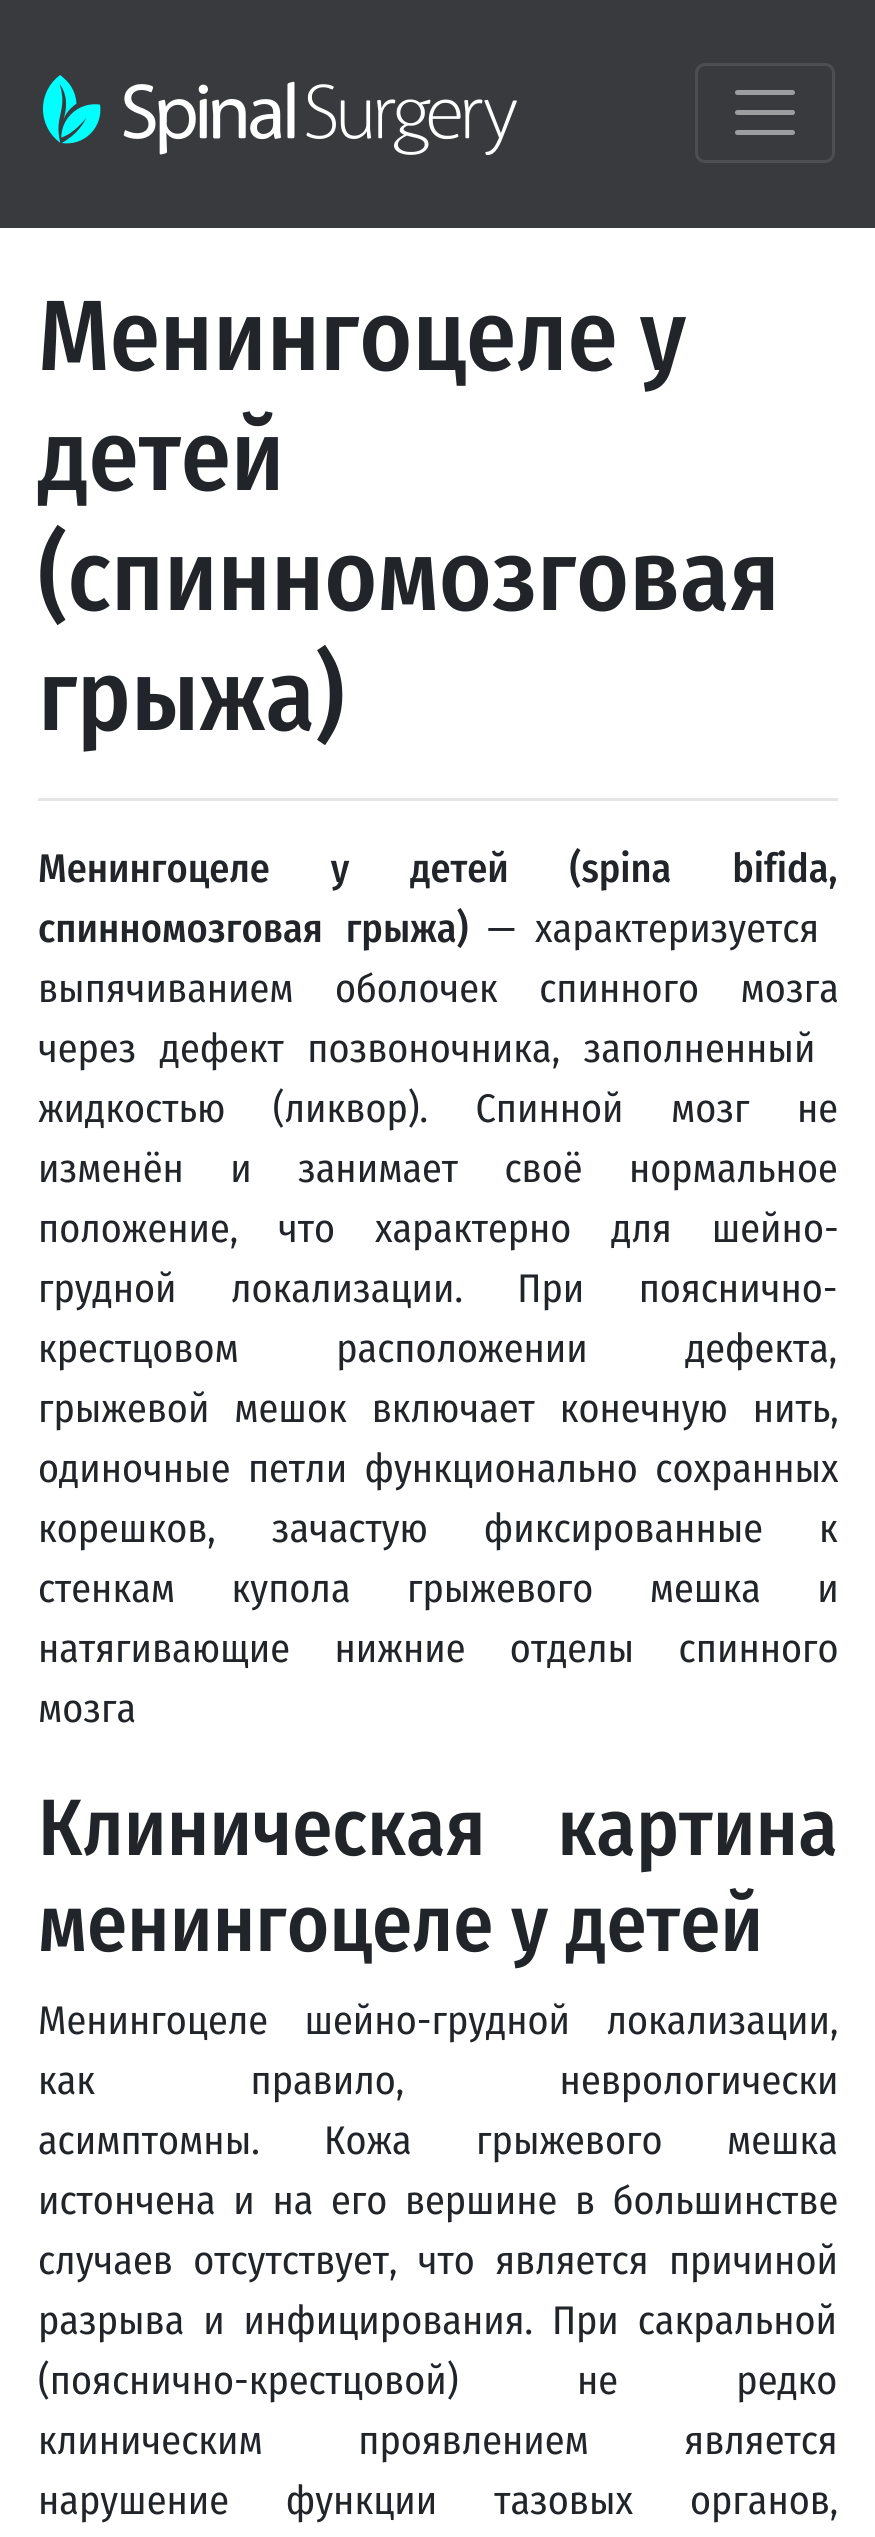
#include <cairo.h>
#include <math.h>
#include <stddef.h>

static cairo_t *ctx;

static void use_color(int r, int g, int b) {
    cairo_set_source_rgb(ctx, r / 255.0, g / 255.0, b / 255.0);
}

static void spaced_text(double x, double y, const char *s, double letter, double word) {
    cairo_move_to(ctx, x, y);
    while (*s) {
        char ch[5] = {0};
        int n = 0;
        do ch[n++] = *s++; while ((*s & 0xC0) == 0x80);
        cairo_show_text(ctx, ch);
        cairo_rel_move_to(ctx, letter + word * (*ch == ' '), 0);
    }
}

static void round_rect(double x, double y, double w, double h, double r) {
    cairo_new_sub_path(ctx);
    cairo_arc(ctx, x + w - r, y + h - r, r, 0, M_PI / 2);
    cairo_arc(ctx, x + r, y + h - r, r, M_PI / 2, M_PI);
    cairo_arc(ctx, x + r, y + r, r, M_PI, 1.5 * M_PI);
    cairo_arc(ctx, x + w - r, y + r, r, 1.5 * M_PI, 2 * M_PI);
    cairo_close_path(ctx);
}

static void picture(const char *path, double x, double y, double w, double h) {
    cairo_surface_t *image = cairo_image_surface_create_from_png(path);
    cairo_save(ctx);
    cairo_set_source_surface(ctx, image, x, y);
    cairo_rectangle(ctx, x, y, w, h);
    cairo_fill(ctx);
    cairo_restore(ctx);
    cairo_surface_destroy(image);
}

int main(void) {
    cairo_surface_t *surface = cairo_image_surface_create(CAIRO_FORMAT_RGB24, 875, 2537);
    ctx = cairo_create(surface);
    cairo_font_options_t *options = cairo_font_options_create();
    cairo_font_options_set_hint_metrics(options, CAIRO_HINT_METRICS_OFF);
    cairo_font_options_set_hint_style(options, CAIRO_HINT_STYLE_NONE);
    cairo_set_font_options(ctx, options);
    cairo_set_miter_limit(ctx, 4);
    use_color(255, 255, 255);
    cairo_paint(ctx);
    use_color(57, 58, 62);
    cairo_rectangle(ctx, 0, 0, 875, 228);
    cairo_fill(ctx);
    picture("img1.png", 42, 75, 475, 80);
    round_rect(696.5, 64.5, 137, 97, 8.5);
    use_color(77, 78, 81);
    cairo_set_line_width(ctx, 3);
    cairo_stroke(ctx);
    cairo_new_path(ctx);
    cairo_move_to(ctx, 737.5, 92.5);
    cairo_line_to(ctx, 792.5, 92.5);
    cairo_move_to(ctx, 737.5, 112.5);
    cairo_line_to(ctx, 792.5, 112.5);
    cairo_move_to(ctx, 737.5, 132.5);
    cairo_line_to(ctx, 792.5, 132.5);
    use_color(156, 157, 159);
    cairo_set_line_width(ctx, 5);
    cairo_set_line_cap(ctx, CAIRO_LINE_CAP_ROUND);
    cairo_stroke(ctx);
    cairo_select_font_face(ctx, "Fira Sans Condensed Medium", CAIRO_FONT_SLANT_NORMAL, CAIRO_FONT_WEIGHT_NORMAL);
    cairo_set_font_size(ctx, 100);
    use_color(33, 37, 41);
    cairo_move_to(ctx, 38, 370);
    cairo_show_text(ctx, "Менингоцеле у");
    cairo_move_to(ctx, 38, 490);
    cairo_show_text(ctx, "детей");
    cairo_move_to(ctx, 38, 610);
    cairo_show_text(ctx, "(спинномозговая");
    cairo_move_to(ctx, 38, 730);
    cairo_show_text(ctx, "грыжа)");
    use_color(230, 230, 230);
    cairo_rectangle(ctx, 38, 798, 800, 3);
    cairo_fill(ctx);
    cairo_set_font_size(ctx, 40);
    use_color(33, 37, 41);
    spaced_text(38, 882, "Менингоцеле у детей (spina bifida,", 0, 52);
    spaced_text(38, 942, "спинномозговая грыжа)", 0, 14);
    cairo_select_font_face(ctx, "Fira Sans Condensed", CAIRO_FONT_SLANT_NORMAL, CAIRO_FONT_WEIGHT_NORMAL);
    spaced_text(487, 942, "— характеризуется", 0, 10);
    spaced_text(38, 1002, "выпячиванием оболочек спинного мозга", 0, 32);
    spaced_text(38, 1062, "через дефект позвоночника, заполненный", 0, 14);
    spaced_text(38, 1122, "жидкостью (ликвор). Спинной мозг не", 0, 38);
    spaced_text(38, 1182, "изменён и занимает своё нормальное", 0, 37);
    spaced_text(38, 1242, "положение, что характерно для шейно-", 0, 30.5);
    spaced_text(38, 1302, "грудной локализации. При пояснично-", 0, 45);
    spaced_text(38, 1362, "крестцовом расположении дефекта,", 0, 88);
    spaced_text(38, 1422, "грыжевой мешок включает конечную нить,", 0, 15.5);
    spaced_text(38, 1482, "одиночные петли функционально сохранных", 0, 8);
    spaced_text(38, 1542, "корешков, зачастую фиксированные к", 0, 46.5);
    spaced_text(38, 1602, "стенкам купола грыжевого мешка и", 0, 47);
    spaced_text(38, 1662, "натягивающие нижние отделы спинного", 0, 35);
    cairo_move_to(ctx, 38, 1722);
    cairo_show_text(ctx, "мозга");
    cairo_select_font_face(ctx, "Fira Sans Condensed Medium", CAIRO_FONT_SLANT_NORMAL, CAIRO_FONT_WEIGHT_NORMAL);
    cairo_set_font_size(ctx, 80);
    spaced_text(38, 1855, "Клиническая картина", 0, 54);
    cairo_move_to(ctx, 38, 1951);
    cairo_show_text(ctx, "менингоцеле у детей");
    cairo_select_font_face(ctx, "Fira Sans Condensed", CAIRO_FONT_SLANT_NORMAL, CAIRO_FONT_WEIGHT_NORMAL);
    cairo_set_font_size(ctx, 40);
    spaced_text(38, 2034, "Менингоцеле шейно-грудной локализации,", 0, 27);
    spaced_text(38, 2094, "как правило, неврологически", 0, 146);
    spaced_text(38, 2154, "асимптомны. Кожа грыжевого мешка", 0, 55);
    spaced_text(38, 2214, "истончена и на его вершине в большинстве", 0, 8.25);
    spaced_text(38, 2274, "случаев отсутствует, что является причиной", 0, 11);
    spaced_text(38, 2334, "разрыва и инфицирования. При сакральной", 0, 9.5);
    spaced_text(38, 2394, "(пояснично-крестцовой) не редко", 0, 109);
    spaced_text(38, 2454, "клиническим проявлением является", 0, 86);
    spaced_text(38, 2514, "нарушение функции тазовых органов,", 0, 47.5);
    cairo_surface_write_to_png(surface, "result.png");
    cairo_font_options_destroy(options);
    cairo_destroy(ctx);
    cairo_surface_destroy(surface);
    return 0;
}
